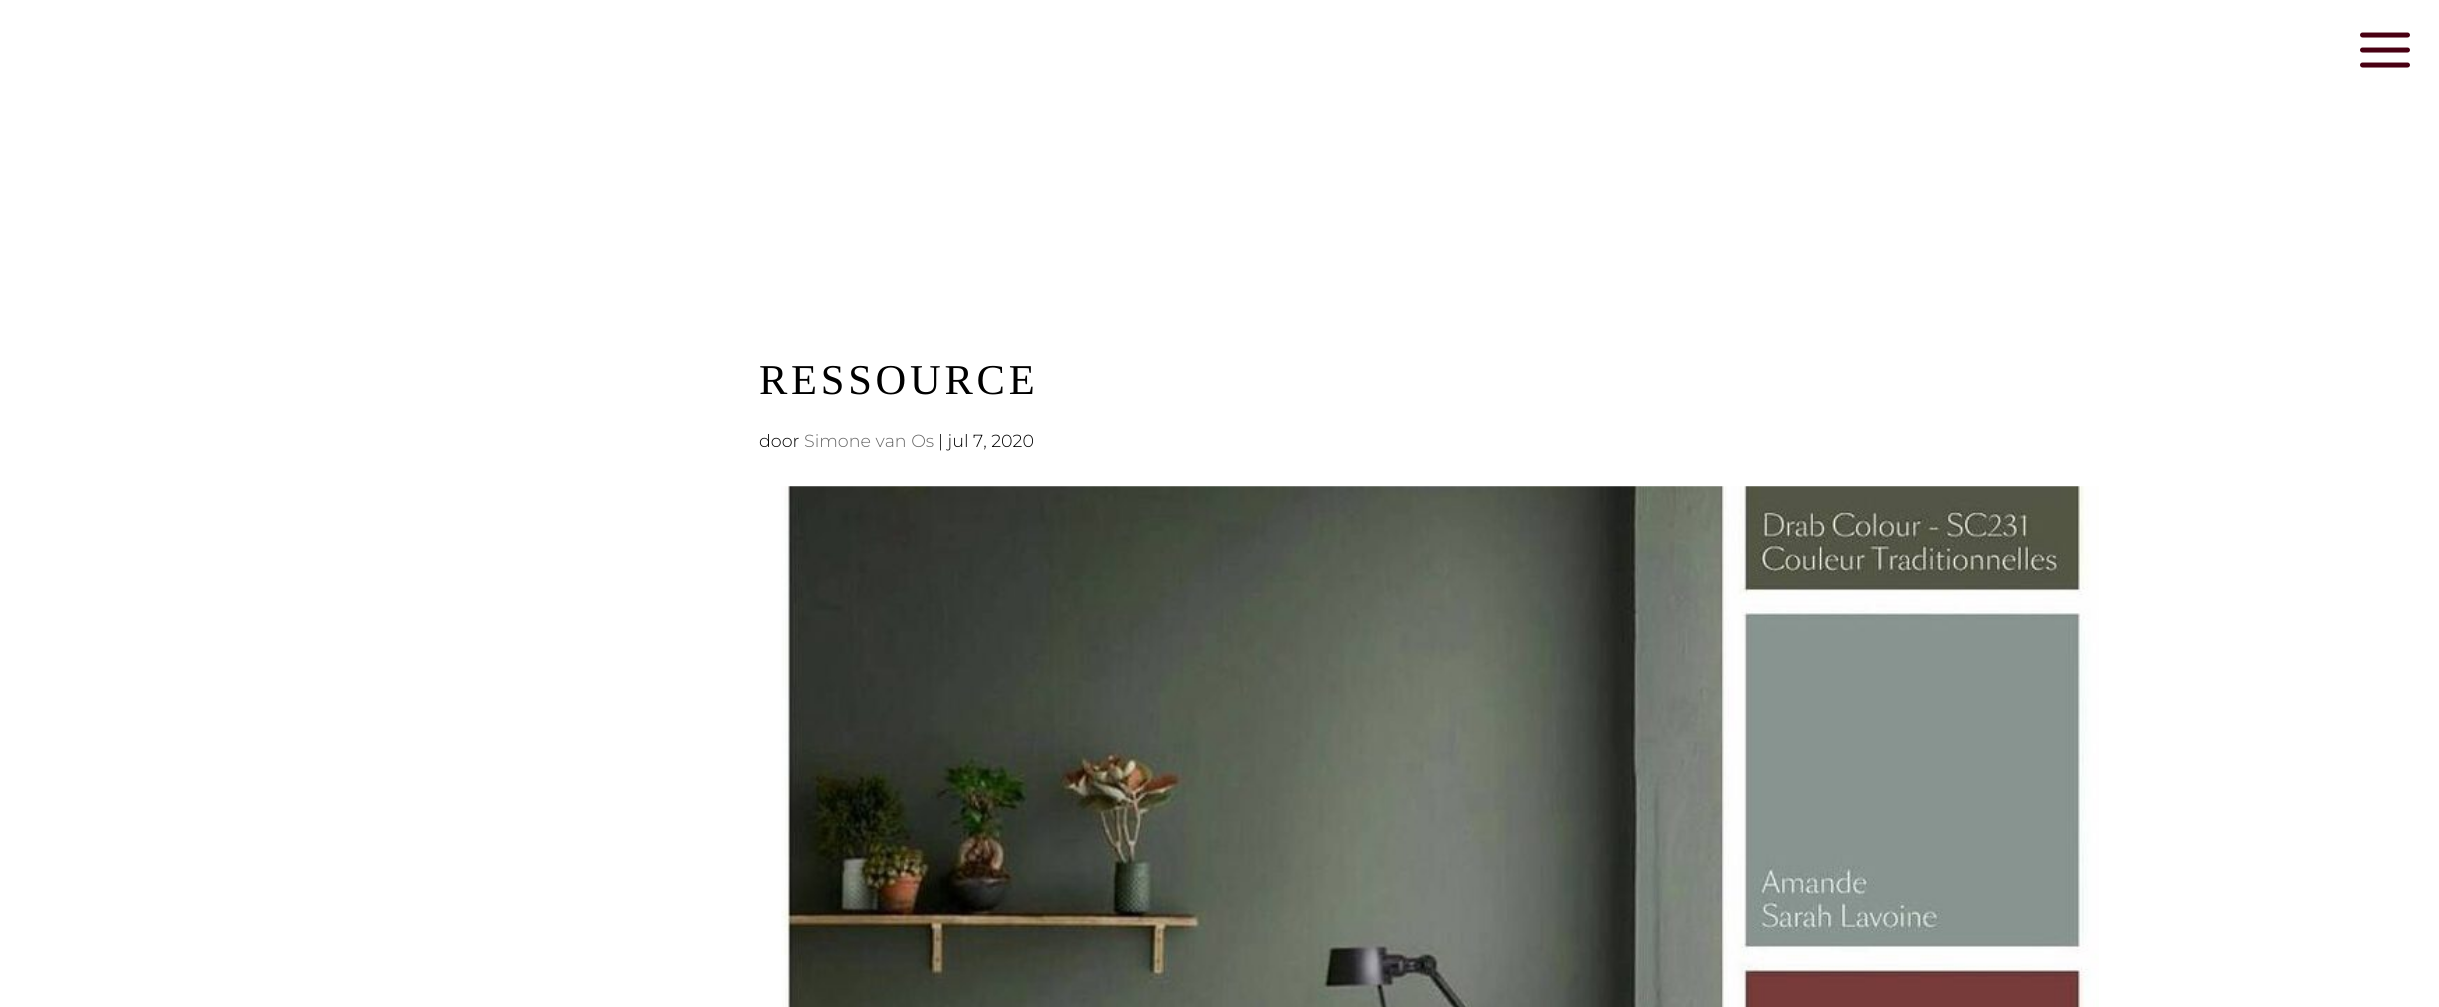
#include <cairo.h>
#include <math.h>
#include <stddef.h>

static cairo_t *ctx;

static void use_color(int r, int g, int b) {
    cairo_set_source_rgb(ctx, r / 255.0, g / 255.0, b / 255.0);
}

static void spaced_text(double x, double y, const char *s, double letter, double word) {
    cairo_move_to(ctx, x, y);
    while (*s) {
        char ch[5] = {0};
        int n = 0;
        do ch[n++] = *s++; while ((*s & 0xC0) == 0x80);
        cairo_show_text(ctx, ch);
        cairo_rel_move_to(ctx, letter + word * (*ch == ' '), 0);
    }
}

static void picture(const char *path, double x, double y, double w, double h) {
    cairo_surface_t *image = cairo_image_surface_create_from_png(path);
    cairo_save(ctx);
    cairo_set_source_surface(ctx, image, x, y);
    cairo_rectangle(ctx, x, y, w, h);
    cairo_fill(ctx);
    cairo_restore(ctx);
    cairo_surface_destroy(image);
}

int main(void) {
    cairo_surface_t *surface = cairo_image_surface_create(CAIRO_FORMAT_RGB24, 2439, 1007);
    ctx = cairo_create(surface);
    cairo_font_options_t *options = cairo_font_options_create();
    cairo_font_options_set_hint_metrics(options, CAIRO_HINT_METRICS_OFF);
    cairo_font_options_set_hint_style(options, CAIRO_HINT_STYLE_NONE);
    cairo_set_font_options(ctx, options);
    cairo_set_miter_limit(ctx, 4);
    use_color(255, 255, 255);
    cairo_paint(ctx);
    picture("img1.png", 2360, 32, 50, 36);
    cairo_select_font_face(ctx, "Liberation Serif", CAIRO_FONT_SLANT_NORMAL, CAIRO_FONT_WEIGHT_NORMAL);
    cairo_set_font_size(ctx, 42.5);
    use_color(0, 0, 0);
    spaced_text(759, 394, "RESSOURCE", 3.75, 0);
    cairo_select_font_face(ctx, "Montserrat Thin", CAIRO_FONT_SLANT_NORMAL, CAIRO_FONT_WEIGHT_NORMAL);
    cairo_set_font_size(ctx, 17.5);
    cairo_move_to(ctx, 759, 447);
    cairo_show_text(ctx, "door");
    use_color(102, 102, 102);
    cairo_move_to(ctx, 804, 447);
    cairo_show_text(ctx, "Simone van Os");
    use_color(0, 0, 0);
    cairo_move_to(ctx, 938, 447);
    cairo_show_text(ctx, "| jul 7, 2020");
    picture("img2.png", 781, 486, 1318, 521);
    cairo_surface_write_to_png(surface, "result.png");
    cairo_font_options_destroy(options);
    cairo_destroy(ctx);
    cairo_surface_destroy(surface);
    return 0;
}
